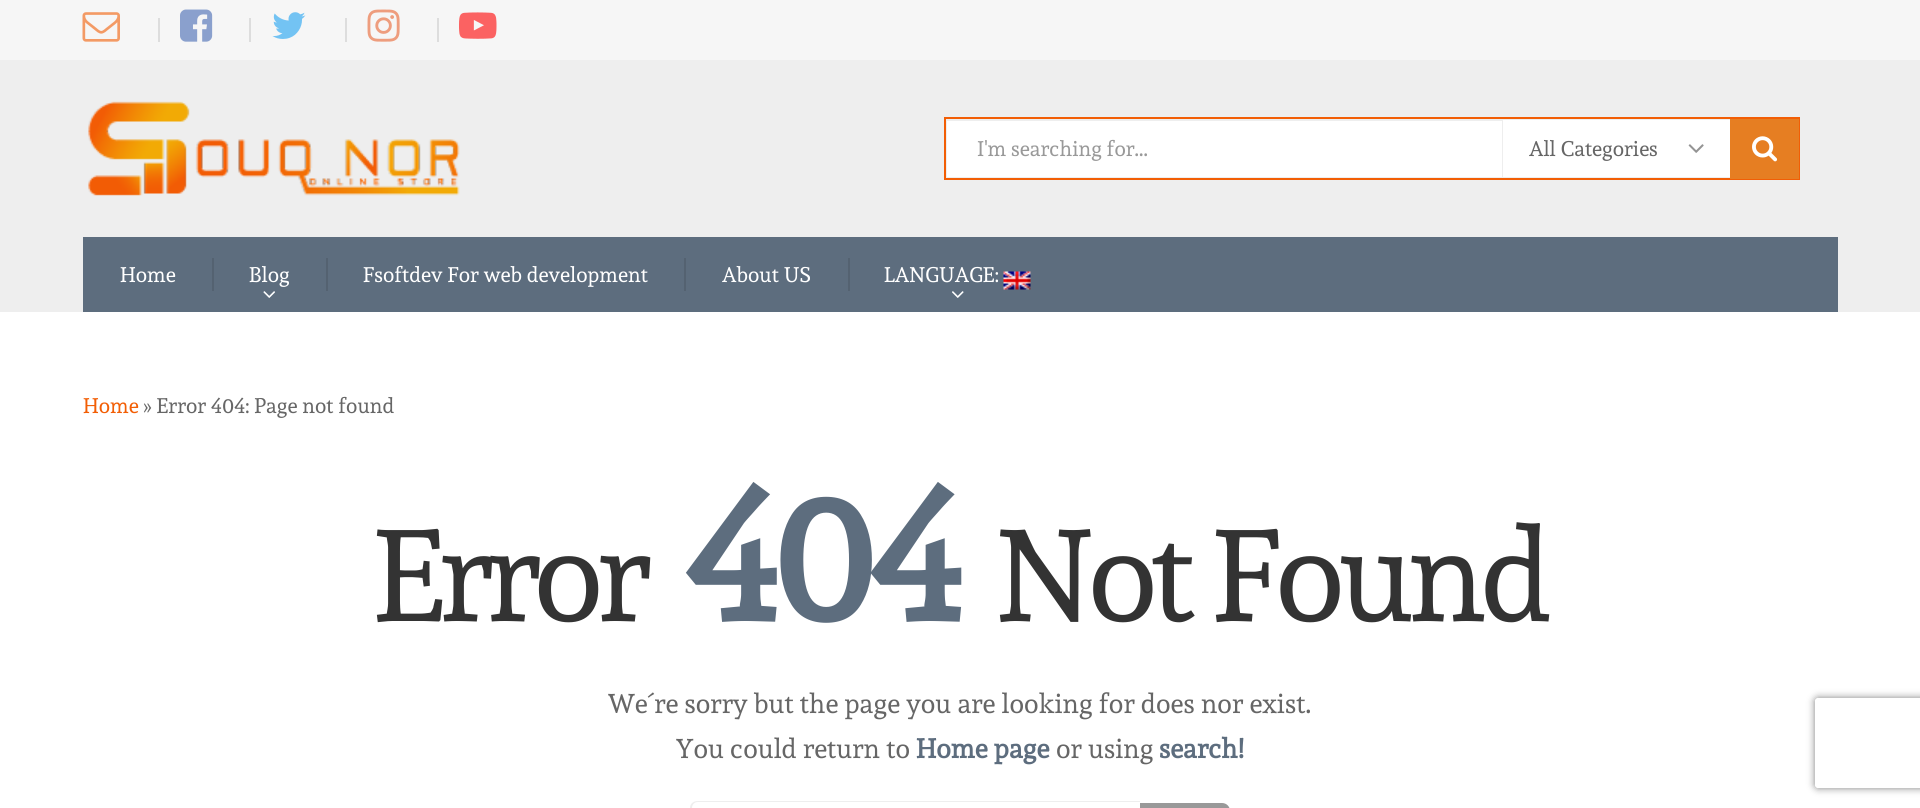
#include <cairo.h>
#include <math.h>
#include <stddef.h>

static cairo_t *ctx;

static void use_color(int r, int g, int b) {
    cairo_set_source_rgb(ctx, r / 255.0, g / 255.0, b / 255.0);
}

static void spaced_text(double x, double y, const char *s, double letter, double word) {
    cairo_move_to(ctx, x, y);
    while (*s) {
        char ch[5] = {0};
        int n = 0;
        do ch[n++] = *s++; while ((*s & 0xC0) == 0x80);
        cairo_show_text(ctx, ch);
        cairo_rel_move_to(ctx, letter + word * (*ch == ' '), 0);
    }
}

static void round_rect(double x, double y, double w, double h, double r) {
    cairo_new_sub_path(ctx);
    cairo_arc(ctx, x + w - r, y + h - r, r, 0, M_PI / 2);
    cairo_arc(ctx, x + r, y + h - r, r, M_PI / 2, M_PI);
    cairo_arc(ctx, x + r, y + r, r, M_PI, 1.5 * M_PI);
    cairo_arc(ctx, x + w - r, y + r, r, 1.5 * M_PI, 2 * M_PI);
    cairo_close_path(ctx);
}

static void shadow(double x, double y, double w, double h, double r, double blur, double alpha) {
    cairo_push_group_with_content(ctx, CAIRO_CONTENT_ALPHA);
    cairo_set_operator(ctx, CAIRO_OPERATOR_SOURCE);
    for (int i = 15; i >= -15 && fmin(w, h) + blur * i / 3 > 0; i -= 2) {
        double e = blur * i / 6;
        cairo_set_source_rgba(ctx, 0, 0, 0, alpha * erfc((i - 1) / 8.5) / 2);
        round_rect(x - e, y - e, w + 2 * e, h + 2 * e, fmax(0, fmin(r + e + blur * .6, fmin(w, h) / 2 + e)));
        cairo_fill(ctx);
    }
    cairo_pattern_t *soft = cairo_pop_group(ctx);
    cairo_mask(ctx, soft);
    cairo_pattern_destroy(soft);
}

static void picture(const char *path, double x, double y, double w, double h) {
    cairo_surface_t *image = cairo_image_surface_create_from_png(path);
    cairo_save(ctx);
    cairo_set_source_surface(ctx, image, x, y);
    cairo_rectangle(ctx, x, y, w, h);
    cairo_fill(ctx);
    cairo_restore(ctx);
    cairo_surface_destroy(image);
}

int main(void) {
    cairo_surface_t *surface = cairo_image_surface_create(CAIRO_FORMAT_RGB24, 1920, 808);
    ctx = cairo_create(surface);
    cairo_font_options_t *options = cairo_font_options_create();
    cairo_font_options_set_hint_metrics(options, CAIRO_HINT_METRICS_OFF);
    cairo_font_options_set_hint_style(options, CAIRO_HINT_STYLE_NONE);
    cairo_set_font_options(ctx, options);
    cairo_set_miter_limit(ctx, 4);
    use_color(255, 255, 255);
    cairo_paint(ctx);
    use_color(246, 246, 246);
    cairo_rectangle(ctx, 0, 0, 1920, 60);
    cairo_fill(ctx);
    picture("img1.png", 82, 12, 38, 30);
    use_color(221, 221, 221);
    cairo_rectangle(ctx, 158, 18, 2, 24);
    cairo_fill(ctx);
    picture("img2.png", 180, 9, 33, 33);
    cairo_rectangle(ctx, 249, 18, 2, 24);
    cairo_fill(ctx);
    picture("img3.png", 272, 12, 34, 27);
    cairo_rectangle(ctx, 345, 18, 2, 24);
    cairo_fill(ctx);
    picture("img4.png", 367, 9, 33, 33);
    cairo_rectangle(ctx, 437, 18, 2, 24);
    cairo_fill(ctx);
    picture("img5.png", 459, 12, 38, 27);
    use_color(238, 238, 238);
    cairo_rectangle(ctx, 0, 60, 1920, 252);
    cairo_fill(ctx);
    picture("img6.png", 88, 101, 372, 95);
    use_color(255, 255, 255);
    cairo_rectangle(ctx, 947, 121, 555, 56);
    cairo_fill(ctx);
    cairo_rectangle(ctx, 945, 118, 854, 61);
    use_color(242, 94, 5);
    cairo_stroke(ctx);
    cairo_select_font_face(ctx, "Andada", CAIRO_FONT_SLANT_NORMAL, CAIRO_FONT_WEIGHT_NORMAL);
    cairo_set_font_size(ctx, 21);
    use_color(153, 153, 153);
    cairo_move_to(ctx, 977, 156);
    cairo_show_text(ctx, "I'm searching for...");
    use_color(255, 255, 255);
    cairo_rectangle(ctx, 1503, 120, 227, 57);
    cairo_fill(ctx);
    use_color(102, 102, 102);
    cairo_move_to(ctx, 1529, 156);
    cairo_show_text(ctx, "All Categories");
    picture("img7.png", 1688, 144, 16, 9);
    use_color(230, 126, 34);
    cairo_rectangle(ctx, 1730, 119, 69, 60);
    cairo_fill(ctx);
    picture("img8.png", 1752, 136, 26, 26);
    use_color(93, 109, 126);
    cairo_rectangle(ctx, 83, 237, 1755, 75);
    cairo_fill(ctx);
    use_color(255, 255, 255);
    cairo_move_to(ctx, 120, 282);
    cairo_show_text(ctx, "Home");
    use_color(84, 98, 113);
    cairo_rectangle(ctx, 212, 258, 2, 33);
    cairo_fill(ctx);
    use_color(255, 255, 255);
    cairo_move_to(ctx, 249, 282);
    cairo_show_text(ctx, "Blog");
    picture("img9.png", 263, 291, 12, 7);
    use_color(84, 98, 113);
    cairo_rectangle(ctx, 326, 258, 2, 33);
    cairo_fill(ctx);
    use_color(255, 255, 255);
    cairo_move_to(ctx, 363, 282);
    cairo_show_text(ctx, "Fsoftdev For web development");
    use_color(84, 98, 113);
    cairo_rectangle(ctx, 684, 258, 2, 33);
    cairo_fill(ctx);
    use_color(255, 255, 255);
    cairo_move_to(ctx, 722, 282);
    cairo_show_text(ctx, "About US");
    use_color(84, 98, 113);
    cairo_rectangle(ctx, 848, 258, 2, 33);
    cairo_fill(ctx);
    use_color(255, 255, 255);
    cairo_move_to(ctx, 884, 282);
    cairo_show_text(ctx, "LANGUAGE:");
    picture("img10.png", 1003, 271, 28, 19);
    picture("img11.png", 952, 291, 12, 7);
    use_color(242, 94, 5);
    cairo_move_to(ctx, 83, 413);
    cairo_show_text(ctx, "Home");
    use_color(102, 102, 102);
    cairo_move_to(ctx, 143, 413);
    cairo_show_text(ctx, "» Error 404: Page not found");
    cairo_set_font_size(ctx, 129);
    use_color(51, 51, 51);
    spaced_text(373, 621, "Error", -6.5, 0);
    cairo_select_font_face(ctx, "Andada", CAIRO_FONT_SLANT_NORMAL, CAIRO_FONT_WEIGHT_BOLD);
    cairo_set_font_size(ctx, 180);
    use_color(93, 109, 126);
    spaced_text(683, 621, "404", -6.5, 0);
    cairo_select_font_face(ctx, "Andada", CAIRO_FONT_SLANT_NORMAL, CAIRO_FONT_WEIGHT_NORMAL);
    cairo_set_font_size(ctx, 129);
    use_color(51, 51, 51);
    spaced_text(996, 621, "Not Found", -6.5, 0);
    cairo_set_font_size(ctx, 27);
    use_color(102, 102, 102);
    cairo_move_to(ctx, 608, 713);
    cairo_show_text(ctx, "We´re sorry but the page you are looking for does nor exist.");
    cairo_move_to(ctx, 676, 758);
    cairo_show_text(ctx, "You could return to");
    cairo_select_font_face(ctx, "Andada", CAIRO_FONT_SLANT_NORMAL, CAIRO_FONT_WEIGHT_BOLD);
    use_color(93, 109, 126);
    cairo_move_to(ctx, 916, 758);
    cairo_show_text(ctx, "Home page");
    cairo_select_font_face(ctx, "Andada", CAIRO_FONT_SLANT_NORMAL, CAIRO_FONT_WEIGHT_NORMAL);
    use_color(102, 102, 102);
    cairo_move_to(ctx, 1056, 758);
    cairo_show_text(ctx, "or using");
    cairo_select_font_face(ctx, "Andada", CAIRO_FONT_SLANT_NORMAL, CAIRO_FONT_WEIGHT_BOLD);
    use_color(93, 109, 126);
    cairo_move_to(ctx, 1159, 758);
    cairo_show_text(ctx, "search!");
    use_color(238, 238, 238);
    cairo_set_fill_rule(ctx, CAIRO_FILL_RULE_EVEN_ODD);
    cairo_new_path(ctx);
    cairo_move_to(ctx, 698, 801);
    cairo_line_to(ctx, 1140, 801);
    cairo_line_to(ctx, 1140, 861);
    cairo_line_to(ctx, 698, 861);
    cairo_curve_to(ctx, 693, 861, 690, 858, 690, 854);
    cairo_line_to(ctx, 690, 808);
    cairo_curve_to(ctx, 690, 804, 693, 801, 698, 801);
    cairo_close_path(ctx);
    cairo_move_to(ctx, 698, 802);
    cairo_line_to(ctx, 1140, 802);
    cairo_line_to(ctx, 1140, 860);
    cairo_line_to(ctx, 698, 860);
    cairo_curve_to(ctx, 694, 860, 692, 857, 692, 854);
    cairo_line_to(ctx, 692, 808);
    cairo_curve_to(ctx, 692, 805, 694, 802, 698, 802);
    cairo_close_path(ctx);
    cairo_fill(ctx);
    use_color(153, 153, 153);
    cairo_new_path(ctx);
    cairo_move_to(ctx, 1140, 803);
    cairo_line_to(ctx, 1222, 803);
    cairo_curve_to(ctx, 1226.5, 803, 1230, 806.5, 1230, 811);
    cairo_line_to(ctx, 1230, 808);
    cairo_curve_to(ctx, 1230, 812.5, 1226.5, 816, 1222, 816);
    cairo_line_to(ctx, 1140, 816);
    cairo_close_path(ctx);
    cairo_fill(ctx);
    cairo_save(ctx);
    cairo_new_path(ctx);
    cairo_move_to(ctx, 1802, 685);
    cairo_line_to(ctx, 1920, 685);
    cairo_line_to(ctx, 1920, 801);
    cairo_line_to(ctx, 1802, 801);
    cairo_close_path(ctx);
    cairo_move_to(ctx, 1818, 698);
    cairo_line_to(ctx, 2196, 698);
    cairo_curve_to(ctx, 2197.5, 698, 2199, 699.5, 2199, 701);
    cairo_line_to(ctx, 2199, 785);
    cairo_curve_to(ctx, 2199, 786.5, 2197.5, 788, 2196, 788);
    cairo_line_to(ctx, 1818, 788);
    cairo_curve_to(ctx, 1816.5, 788, 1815, 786.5, 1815, 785);
    cairo_line_to(ctx, 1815, 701);
    cairo_curve_to(ctx, 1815, 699.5, 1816.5, 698, 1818, 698);
    cairo_close_path(ctx);
    cairo_clip(ctx);
    use_color(128, 128, 128);
    shadow(1815, 698, 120, 90, 3, 4, 1);
    cairo_restore(ctx);
    cairo_surface_write_to_png(surface, "result.png");
    cairo_font_options_destroy(options);
    cairo_destroy(ctx);
    cairo_surface_destroy(surface);
    return 0;
}
